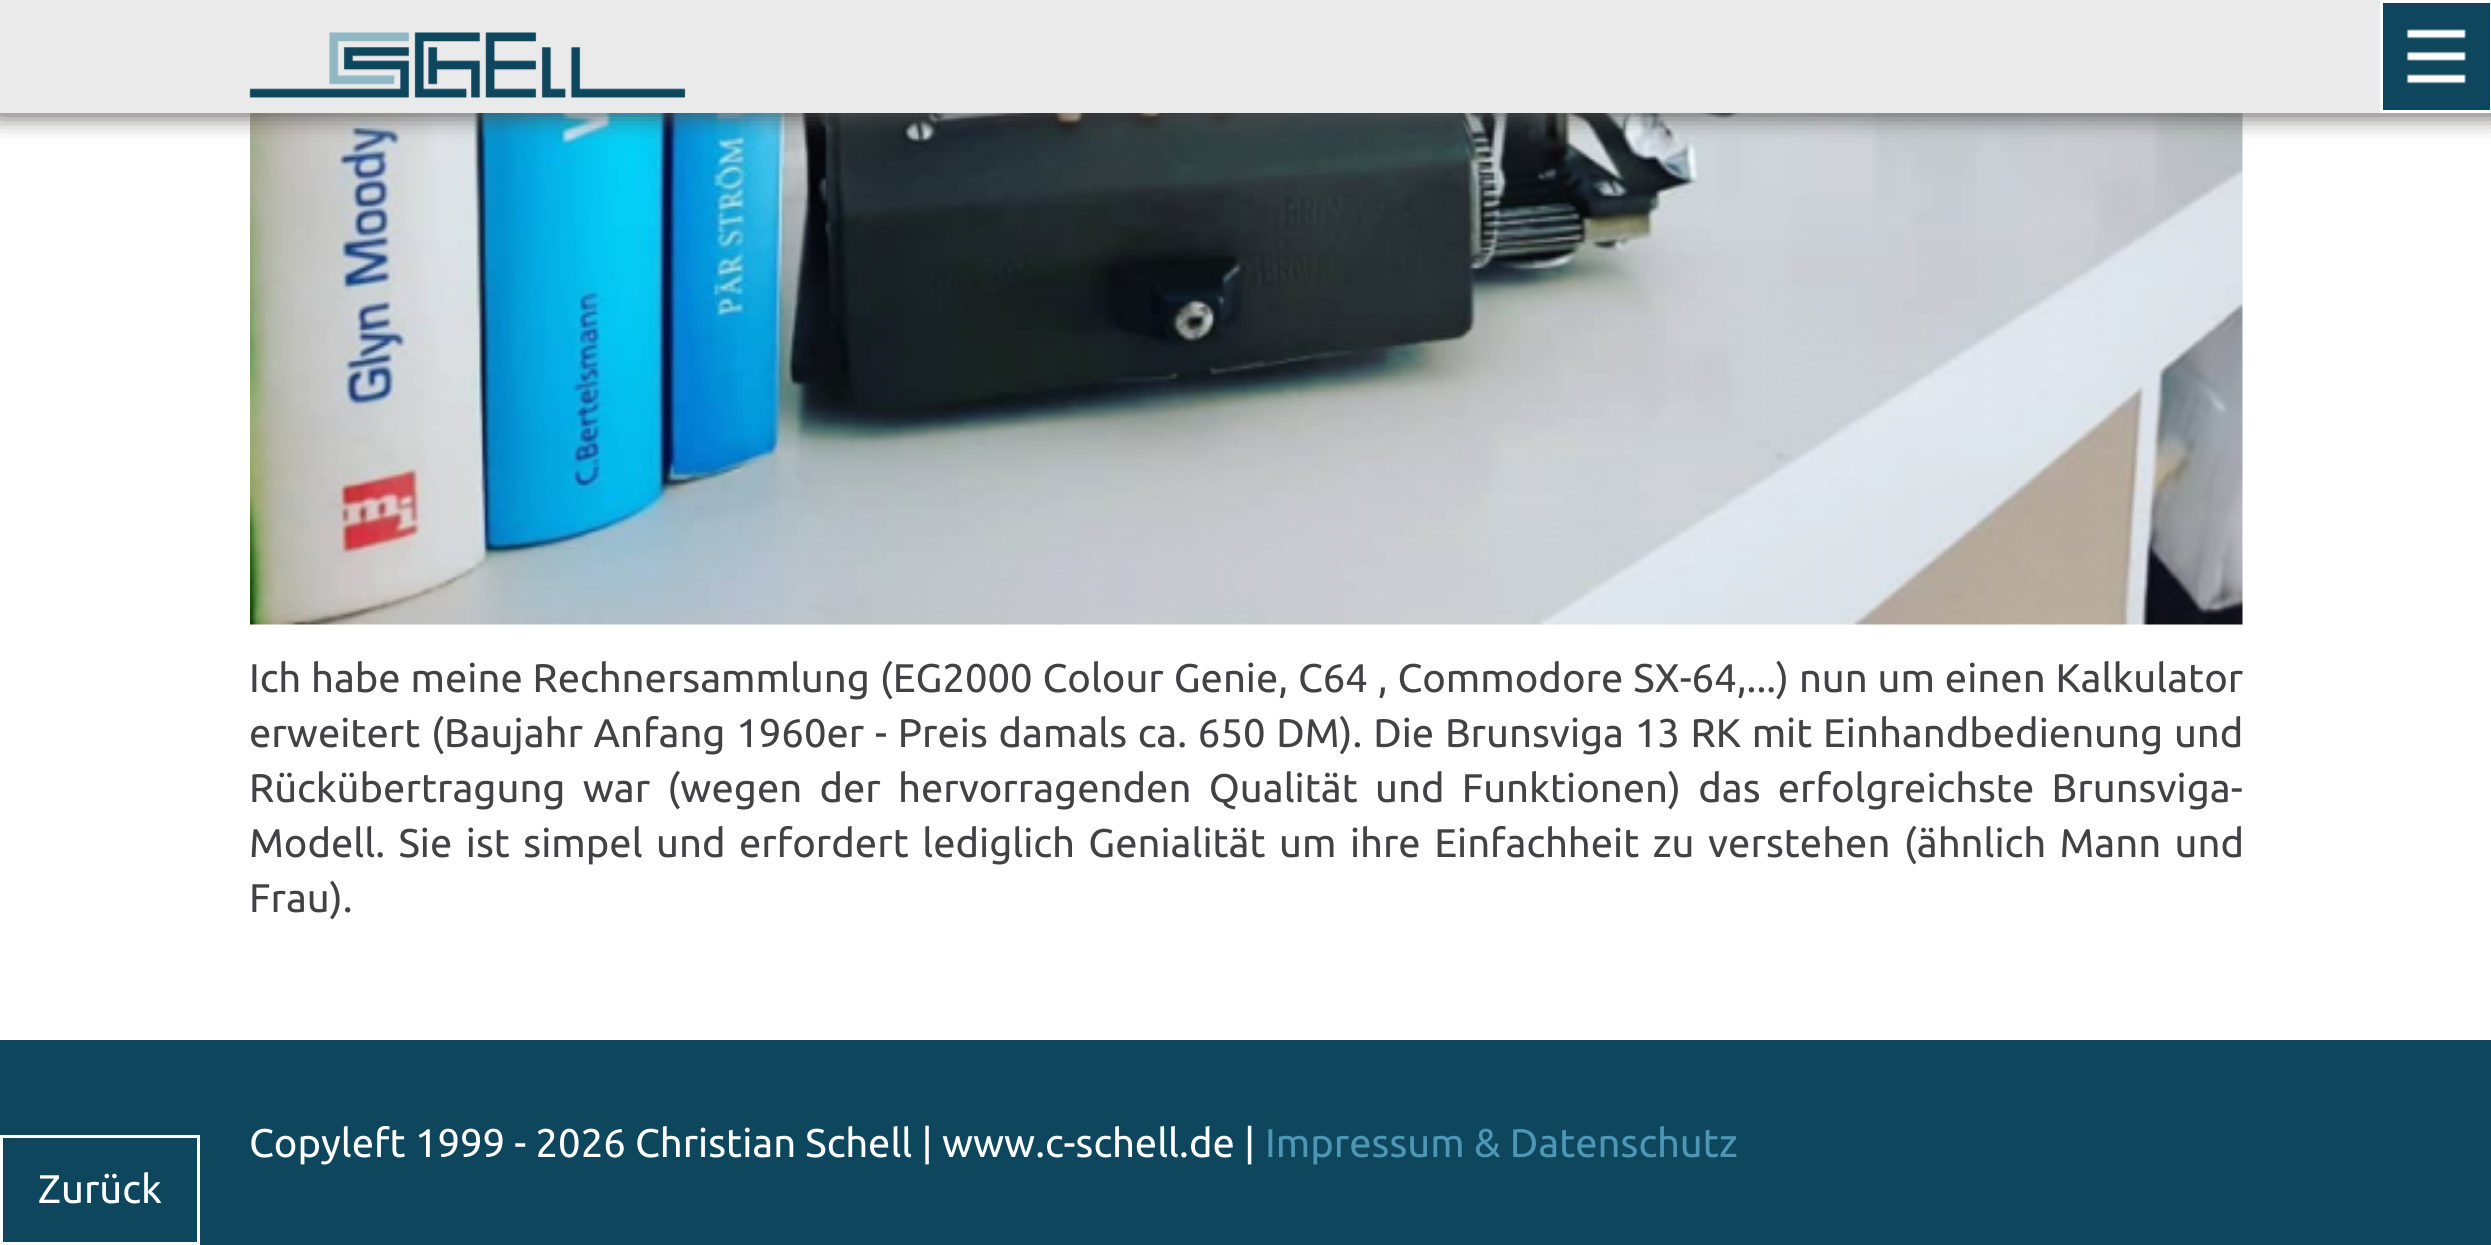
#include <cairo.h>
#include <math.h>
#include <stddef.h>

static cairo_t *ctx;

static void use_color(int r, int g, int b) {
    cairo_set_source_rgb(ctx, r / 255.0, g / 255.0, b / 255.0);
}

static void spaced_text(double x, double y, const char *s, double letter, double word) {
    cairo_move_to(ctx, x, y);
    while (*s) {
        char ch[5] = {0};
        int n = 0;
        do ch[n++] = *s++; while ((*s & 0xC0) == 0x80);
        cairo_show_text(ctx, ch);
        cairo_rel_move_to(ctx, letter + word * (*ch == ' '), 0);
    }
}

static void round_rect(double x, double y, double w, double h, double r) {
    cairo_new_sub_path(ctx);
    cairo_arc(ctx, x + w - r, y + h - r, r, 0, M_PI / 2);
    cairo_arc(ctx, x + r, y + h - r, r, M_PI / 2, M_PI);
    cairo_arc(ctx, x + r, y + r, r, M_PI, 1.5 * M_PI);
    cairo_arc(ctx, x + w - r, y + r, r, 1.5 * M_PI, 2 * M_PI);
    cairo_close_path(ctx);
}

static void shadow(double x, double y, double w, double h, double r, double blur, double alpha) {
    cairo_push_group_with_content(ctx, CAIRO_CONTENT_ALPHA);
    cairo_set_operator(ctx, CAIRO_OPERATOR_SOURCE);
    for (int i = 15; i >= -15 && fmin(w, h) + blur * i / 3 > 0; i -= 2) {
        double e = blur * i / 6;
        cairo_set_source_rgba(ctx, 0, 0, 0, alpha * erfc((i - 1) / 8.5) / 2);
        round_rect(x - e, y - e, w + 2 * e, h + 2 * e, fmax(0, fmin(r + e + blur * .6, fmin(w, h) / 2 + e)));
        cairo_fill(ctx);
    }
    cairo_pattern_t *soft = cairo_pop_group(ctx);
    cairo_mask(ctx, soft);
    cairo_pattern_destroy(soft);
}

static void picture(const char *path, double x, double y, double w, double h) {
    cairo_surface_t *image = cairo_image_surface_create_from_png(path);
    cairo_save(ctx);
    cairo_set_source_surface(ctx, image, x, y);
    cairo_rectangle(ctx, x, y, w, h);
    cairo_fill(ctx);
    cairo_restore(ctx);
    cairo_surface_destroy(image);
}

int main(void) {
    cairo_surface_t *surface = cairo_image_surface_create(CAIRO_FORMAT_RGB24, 2491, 1245);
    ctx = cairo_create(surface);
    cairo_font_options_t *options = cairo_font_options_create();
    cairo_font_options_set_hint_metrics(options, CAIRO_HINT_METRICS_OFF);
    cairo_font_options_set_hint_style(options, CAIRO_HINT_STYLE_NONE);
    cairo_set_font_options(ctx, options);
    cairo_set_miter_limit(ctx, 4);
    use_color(255, 255, 255);
    cairo_paint(ctx);
    picture("img3.png", 250, 113, 1993, 512);
    use_color(85, 82, 81);
    shadow(-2, -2, 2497, 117, 0, 12.5, 1);
    use_color(234, 234, 234);
    cairo_rectangle(ctx, 0, 0, 2380, 113);
    cairo_fill(ctx);
    picture("img1.png", 249, 32, 437, 66);
    use_color(13, 70, 93);
    cairo_rectangle(ctx, 2381.5, 1.5, 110, 110);
    cairo_fill_preserve(ctx);
    use_color(255, 255, 255);
    cairo_set_line_width(ctx, 3);
    cairo_stroke(ctx);
    picture("img2.png", 2406, 29, 60, 55);
    cairo_select_font_face(ctx, "Ubuntu", CAIRO_FONT_SLANT_NORMAL, CAIRO_FONT_WEIGHT_NORMAL);
    cairo_set_font_size(ctx, 40);
    use_color(66, 66, 68);
    spaced_text(249, 692, "Ich habe meine Rechnersammlung (EG2000 Colour Genie, C64 , Commodore SX-64,...) nun um einen Kalkulator", 0, 0.6);
    spaced_text(249, 747, "erweitert (Baujahr Anfang 1960er - Preis damals ca. 650 DM). Die Brunsviga 13 RK mit Einhandbedienung und", 0, 1.5);
    spaced_text(249, 802, "Rückübertragung war (wegen der hervorragenden Qualität und Funktionen) das erfolgreichste Brunsviga-", 0, 8);
    spaced_text(249, 857, "Modell. Sie ist simpel und erfordert lediglich Genialität um ihre Einfachheit zu verstehen (ähnlich Mann und", 0, 4.25);
    cairo_move_to(ctx, 249, 912);
    cairo_show_text(ctx, "Frau).");
    use_color(13, 70, 93);
    cairo_rectangle(ctx, 0, 1040, 2491, 205);
    cairo_fill(ctx);
    cairo_rectangle(ctx, 1.5, 1136.5, 197, 107);
    use_color(255, 255, 255);
    cairo_stroke(ctx);
    cairo_move_to(ctx, 38, 1203);
    cairo_show_text(ctx, "Zurück");
    cairo_move_to(ctx, 249, 1157);
    cairo_show_text(ctx, "Copyleft 1999 - 2026 Christian Schell | www.c-schell.de |");
    use_color(77, 151, 181);
    cairo_move_to(ctx, 1265, 1157);
    cairo_show_text(ctx, "Impressum & Datenschutz");
    cairo_surface_write_to_png(surface, "result.png");
    cairo_font_options_destroy(options);
    cairo_destroy(ctx);
    cairo_surface_destroy(surface);
    return 0;
}
